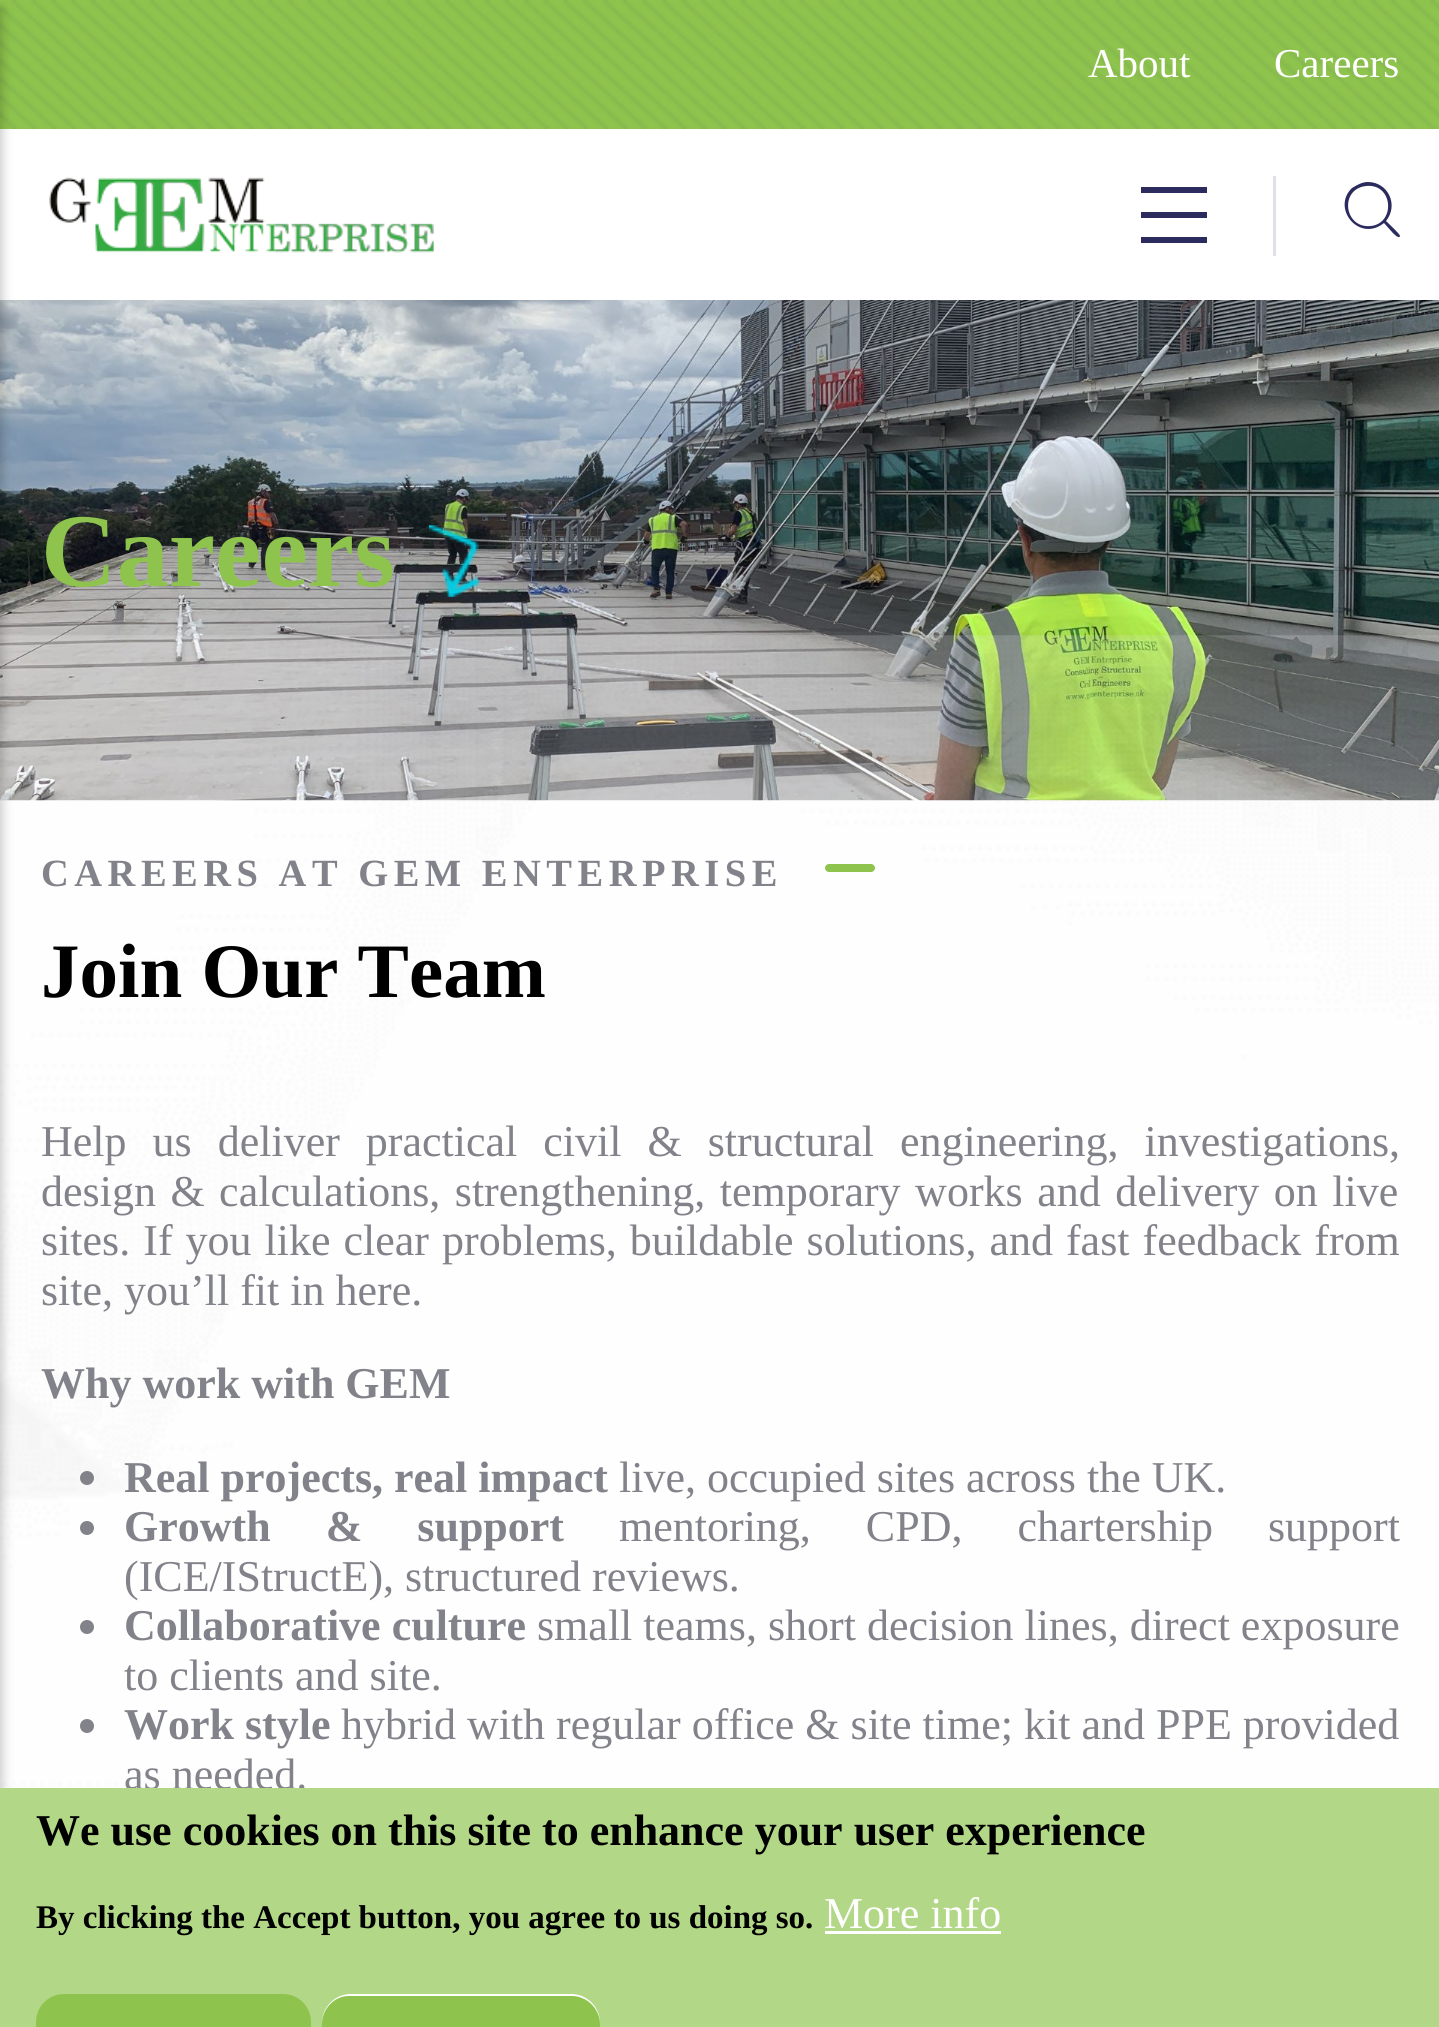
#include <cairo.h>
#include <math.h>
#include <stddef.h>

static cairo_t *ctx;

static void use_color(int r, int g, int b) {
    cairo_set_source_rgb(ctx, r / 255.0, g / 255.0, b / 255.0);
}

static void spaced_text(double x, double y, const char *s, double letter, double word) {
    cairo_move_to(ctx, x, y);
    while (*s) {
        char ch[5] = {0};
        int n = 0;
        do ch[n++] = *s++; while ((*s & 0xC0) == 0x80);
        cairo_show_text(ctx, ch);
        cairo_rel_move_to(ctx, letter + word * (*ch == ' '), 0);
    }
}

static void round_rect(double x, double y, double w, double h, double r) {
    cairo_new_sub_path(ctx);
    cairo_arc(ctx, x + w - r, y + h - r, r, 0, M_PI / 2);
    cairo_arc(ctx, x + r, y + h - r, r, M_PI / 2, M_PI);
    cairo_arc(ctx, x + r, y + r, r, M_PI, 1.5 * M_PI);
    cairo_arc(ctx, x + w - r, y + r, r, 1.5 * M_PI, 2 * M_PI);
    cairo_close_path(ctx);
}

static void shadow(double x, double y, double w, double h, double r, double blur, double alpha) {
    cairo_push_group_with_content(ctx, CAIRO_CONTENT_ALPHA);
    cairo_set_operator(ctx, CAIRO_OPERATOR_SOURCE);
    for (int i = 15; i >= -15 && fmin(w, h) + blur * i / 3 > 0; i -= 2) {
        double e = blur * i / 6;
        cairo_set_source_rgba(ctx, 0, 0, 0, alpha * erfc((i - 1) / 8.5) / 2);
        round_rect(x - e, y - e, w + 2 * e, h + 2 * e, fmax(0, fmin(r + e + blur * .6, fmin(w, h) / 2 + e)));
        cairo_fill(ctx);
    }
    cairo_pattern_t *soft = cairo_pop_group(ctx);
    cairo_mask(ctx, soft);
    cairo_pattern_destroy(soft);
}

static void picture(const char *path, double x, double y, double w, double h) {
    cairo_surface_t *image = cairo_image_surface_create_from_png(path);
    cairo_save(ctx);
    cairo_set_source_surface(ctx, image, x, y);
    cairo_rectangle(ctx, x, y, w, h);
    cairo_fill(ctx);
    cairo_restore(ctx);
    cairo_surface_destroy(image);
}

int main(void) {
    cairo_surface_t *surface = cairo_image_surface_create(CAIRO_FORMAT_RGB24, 1439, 2027);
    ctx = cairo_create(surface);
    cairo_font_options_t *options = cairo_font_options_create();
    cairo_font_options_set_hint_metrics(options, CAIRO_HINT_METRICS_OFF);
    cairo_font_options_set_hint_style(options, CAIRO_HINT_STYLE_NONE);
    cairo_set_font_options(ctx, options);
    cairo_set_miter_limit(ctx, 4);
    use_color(255, 255, 255);
    cairo_paint(ctx);
    use_color(142, 196, 77);
    cairo_rectangle(ctx, 0, 0, 1439, 129);
    cairo_fill(ctx);
    picture("img2.png", 0, 0, 1439, 129);
    picture("img3.png", 0, 300, 1439, 501);
    picture("img5.png", 0, 635, 1439, 1153);
    use_color(0, 0, 0);
    shadow(-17, 8, 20, 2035, 0, 5.5, 0.2);
    use_color(43, 43, 94);
    cairo_rectangle(ctx, 1141, 187, 66, 6);
    cairo_fill(ctx);
    cairo_rectangle(ctx, 1141, 212, 66, 6);
    cairo_fill(ctx);
    cairo_rectangle(ctx, 1141, 237, 66, 6);
    cairo_fill(ctx);
    use_color(226, 223, 235);
    cairo_rectangle(ctx, 1273, 176, 3, 80);
    cairo_fill(ctx);
    use_color(43, 43, 94);
    cairo_new_path(ctx);
    cairo_move_to(ctx, 1368, 182);
    cairo_curve_to(ctx, 1388, 182, 1399, 205, 1386, 221);
    cairo_curve_to(ctx, 1388, 223, 1400, 234, 1400, 236);
    cairo_curve_to(ctx, 1399, 240, 1392, 232, 1392, 232);
    cairo_line_to(ctx, 1384, 223);
    cairo_curve_to(ctx, 1359, 243, 1331, 208, 1352, 188);
    cairo_curve_to(ctx, 1357, 185, 1362, 182, 1368, 182);
    cairo_close_path(ctx);
    cairo_move_to(ctx, 1366, 186);
    cairo_curve_to(ctx, 1339, 189, 1344, 229, 1371, 226);
    cairo_curve_to(ctx, 1396, 223, 1393, 183, 1366, 186);
    cairo_close_path(ctx);
    cairo_fill(ctx);
    picture("img1.png", 49, 177, 385, 76);
    cairo_select_font_face(ctx, "Liberation Serif", CAIRO_FONT_SLANT_NORMAL, CAIRO_FONT_WEIGHT_NORMAL);
    cairo_set_font_size(ctx, 41);
    use_color(255, 255, 255);
    cairo_move_to(ctx, 1088, 77);
    cairo_show_text(ctx, "About");
    cairo_move_to(ctx, 1274, 77);
    cairo_show_text(ctx, "Careers");
    cairo_select_font_face(ctx, "Liberation Serif", CAIRO_FONT_SLANT_NORMAL, CAIRO_FONT_WEIGHT_BOLD);
    cairo_set_font_size(ctx, 104.5);
    use_color(142, 196, 77);
    cairo_move_to(ctx, 41, 586);
    cairo_show_text(ctx, "Careers");
    picture("img4.png", 429, 525, 50, 72);
    cairo_set_font_size(ctx, 38.5);
    use_color(130, 130, 138);
    spaced_text(41, 886, "CAREERS AT GEM ENTERPRISE", 5.5, 0);
    use_color(142, 196, 77);
    round_rect(825, 864, 50, 8, 4);
    cairo_fill(ctx);
    cairo_set_font_size(ctx, 77);
    use_color(0, 0, 0);
    cairo_move_to(ctx, 41, 997);
    cairo_show_text(ctx, "Join Our Team");
    cairo_select_font_face(ctx, "Liberation Serif", CAIRO_FONT_SLANT_NORMAL, CAIRO_FONT_WEIGHT_NORMAL);
    cairo_set_font_size(ctx, 44);
    use_color(130, 130, 138);
    spaced_text(41, 1156, "Help us deliver practical civil & structural engineering, investigations,", 0, 15);
    spaced_text(41, 1206, "design & calculations, strengthening, temporary works and delivery on live", 0, 3.5);
    spaced_text(41, 1255, "sites. If you like clear problems, buildable solutions, and fast feedback from", 0, 2);
    cairo_move_to(ctx, 41, 1305);
    cairo_show_text(ctx, "site, you’ll fit in here.");
    cairo_select_font_face(ctx, "Liberation Serif", CAIRO_FONT_SLANT_NORMAL, CAIRO_FONT_WEIGHT_BOLD);
    cairo_move_to(ctx, 41, 1398);
    cairo_show_text(ctx, "Why work with GEM");
    cairo_new_path(ctx);
    cairo_arc(ctx, 87, 1478, 7, 0, 2 * M_PI);
    cairo_fill(ctx);
    cairo_move_to(ctx, 124, 1492);
    cairo_show_text(ctx, "Real projects, real impact");
    cairo_select_font_face(ctx, "Liberation Serif", CAIRO_FONT_SLANT_NORMAL, CAIRO_FONT_WEIGHT_NORMAL);
    cairo_move_to(ctx, 619, 1492);
    cairo_show_text(ctx, "live, occupied sites across the UK.");
    cairo_new_path(ctx);
    cairo_arc(ctx, 87, 1528, 7, 0, 2 * M_PI);
    cairo_fill(ctx);
    cairo_select_font_face(ctx, "Liberation Serif", CAIRO_FONT_SLANT_NORMAL, CAIRO_FONT_WEIGHT_BOLD);
    spaced_text(124, 1541, "Growth & support", 0, 44);
    cairo_select_font_face(ctx, "Liberation Serif", CAIRO_FONT_SLANT_NORMAL, CAIRO_FONT_WEIGHT_NORMAL);
    spaced_text(619, 1541, "mentoring, CPD, chartership support", 0, 44);
    cairo_move_to(ctx, 124, 1591);
    cairo_show_text(ctx, "(ICE/IStructE), structured reviews.");
    cairo_new_path(ctx);
    cairo_arc(ctx, 87, 1627, 7, 0, 2 * M_PI);
    cairo_fill(ctx);
    cairo_select_font_face(ctx, "Liberation Serif", CAIRO_FONT_SLANT_NORMAL, CAIRO_FONT_WEIGHT_BOLD);
    cairo_move_to(ctx, 124, 1640);
    cairo_show_text(ctx, "Collaborative culture");
    cairo_select_font_face(ctx, "Liberation Serif", CAIRO_FONT_SLANT_NORMAL, CAIRO_FONT_WEIGHT_NORMAL);
    cairo_move_to(ctx, 537, 1640);
    cairo_show_text(ctx, "small teams, short decision lines, direct exposure");
    cairo_move_to(ctx, 124, 1690);
    cairo_show_text(ctx, "to clients and site.");
    cairo_new_path(ctx);
    cairo_arc(ctx, 87, 1726, 7, 0, 2 * M_PI);
    cairo_fill(ctx);
    cairo_select_font_face(ctx, "Liberation Serif", CAIRO_FONT_SLANT_NORMAL, CAIRO_FONT_WEIGHT_BOLD);
    cairo_move_to(ctx, 124, 1739);
    cairo_show_text(ctx, "Work style");
    cairo_select_font_face(ctx, "Liberation Serif", CAIRO_FONT_SLANT_NORMAL, CAIRO_FONT_WEIGHT_NORMAL);
    cairo_move_to(ctx, 341, 1739);
    cairo_show_text(ctx, "hybrid with regular office & site time; kit and PPE provided");
    cairo_move_to(ctx, 124, 1789);
    cairo_show_text(ctx, "as needed.");
    use_color(178, 215, 134);
    cairo_rectangle(ctx, 0, 1788, 1439, 239);
    cairo_fill(ctx);
    cairo_select_font_face(ctx, "Liberation Serif", CAIRO_FONT_SLANT_NORMAL, CAIRO_FONT_WEIGHT_BOLD);
    use_color(0, 0, 0);
    cairo_move_to(ctx, 36, 1845);
    cairo_show_text(ctx, "We use cookies on this site to enhance your user experience");
    cairo_set_font_size(ctx, 33);
    cairo_move_to(ctx, 36, 1928);
    cairo_show_text(ctx, "By clicking the Accept button, you agree to us doing so.");
    cairo_select_font_face(ctx, "Liberation Serif", CAIRO_FONT_SLANT_NORMAL, CAIRO_FONT_WEIGHT_NORMAL);
    cairo_set_font_size(ctx, 44);
    use_color(255, 255, 255);
    cairo_move_to(ctx, 824, 1928);
    cairo_show_text(ctx, "More info");
    cairo_rectangle(ctx, 825, 1931, 176, 3);
    cairo_fill(ctx);
    use_color(142, 196, 77);
    round_rect(36, 1994, 275, 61, 28);
    cairo_fill(ctx);
    round_rect(322, 1994, 278, 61, 28);
    cairo_fill(ctx);
    use_color(255, 255, 255);
    cairo_new_path(ctx);
    cairo_move_to(ctx, 349, 1996);
    cairo_line_to(ctx, 572, 1996);
    cairo_curve_to(ctx, 587, 1996, 600, 2009, 600, 2024);
    cairo_line_to(ctx, 600, 2022);
    cairo_curve_to(ctx, 600, 2007, 587, 1994, 572, 1994);
    cairo_line_to(ctx, 350, 1994);
    cairo_curve_to(ctx, 335, 1994, 322, 2007, 322, 2022);
    cairo_line_to(ctx, 322, 2024);
    cairo_curve_to(ctx, 322, 2009, 334, 1996, 349, 1996);
    cairo_close_path(ctx);
    cairo_fill(ctx);
    cairo_surface_write_to_png(surface, "result.png");
    cairo_font_options_destroy(options);
    cairo_destroy(ctx);
    cairo_surface_destroy(surface);
    return 0;
}
